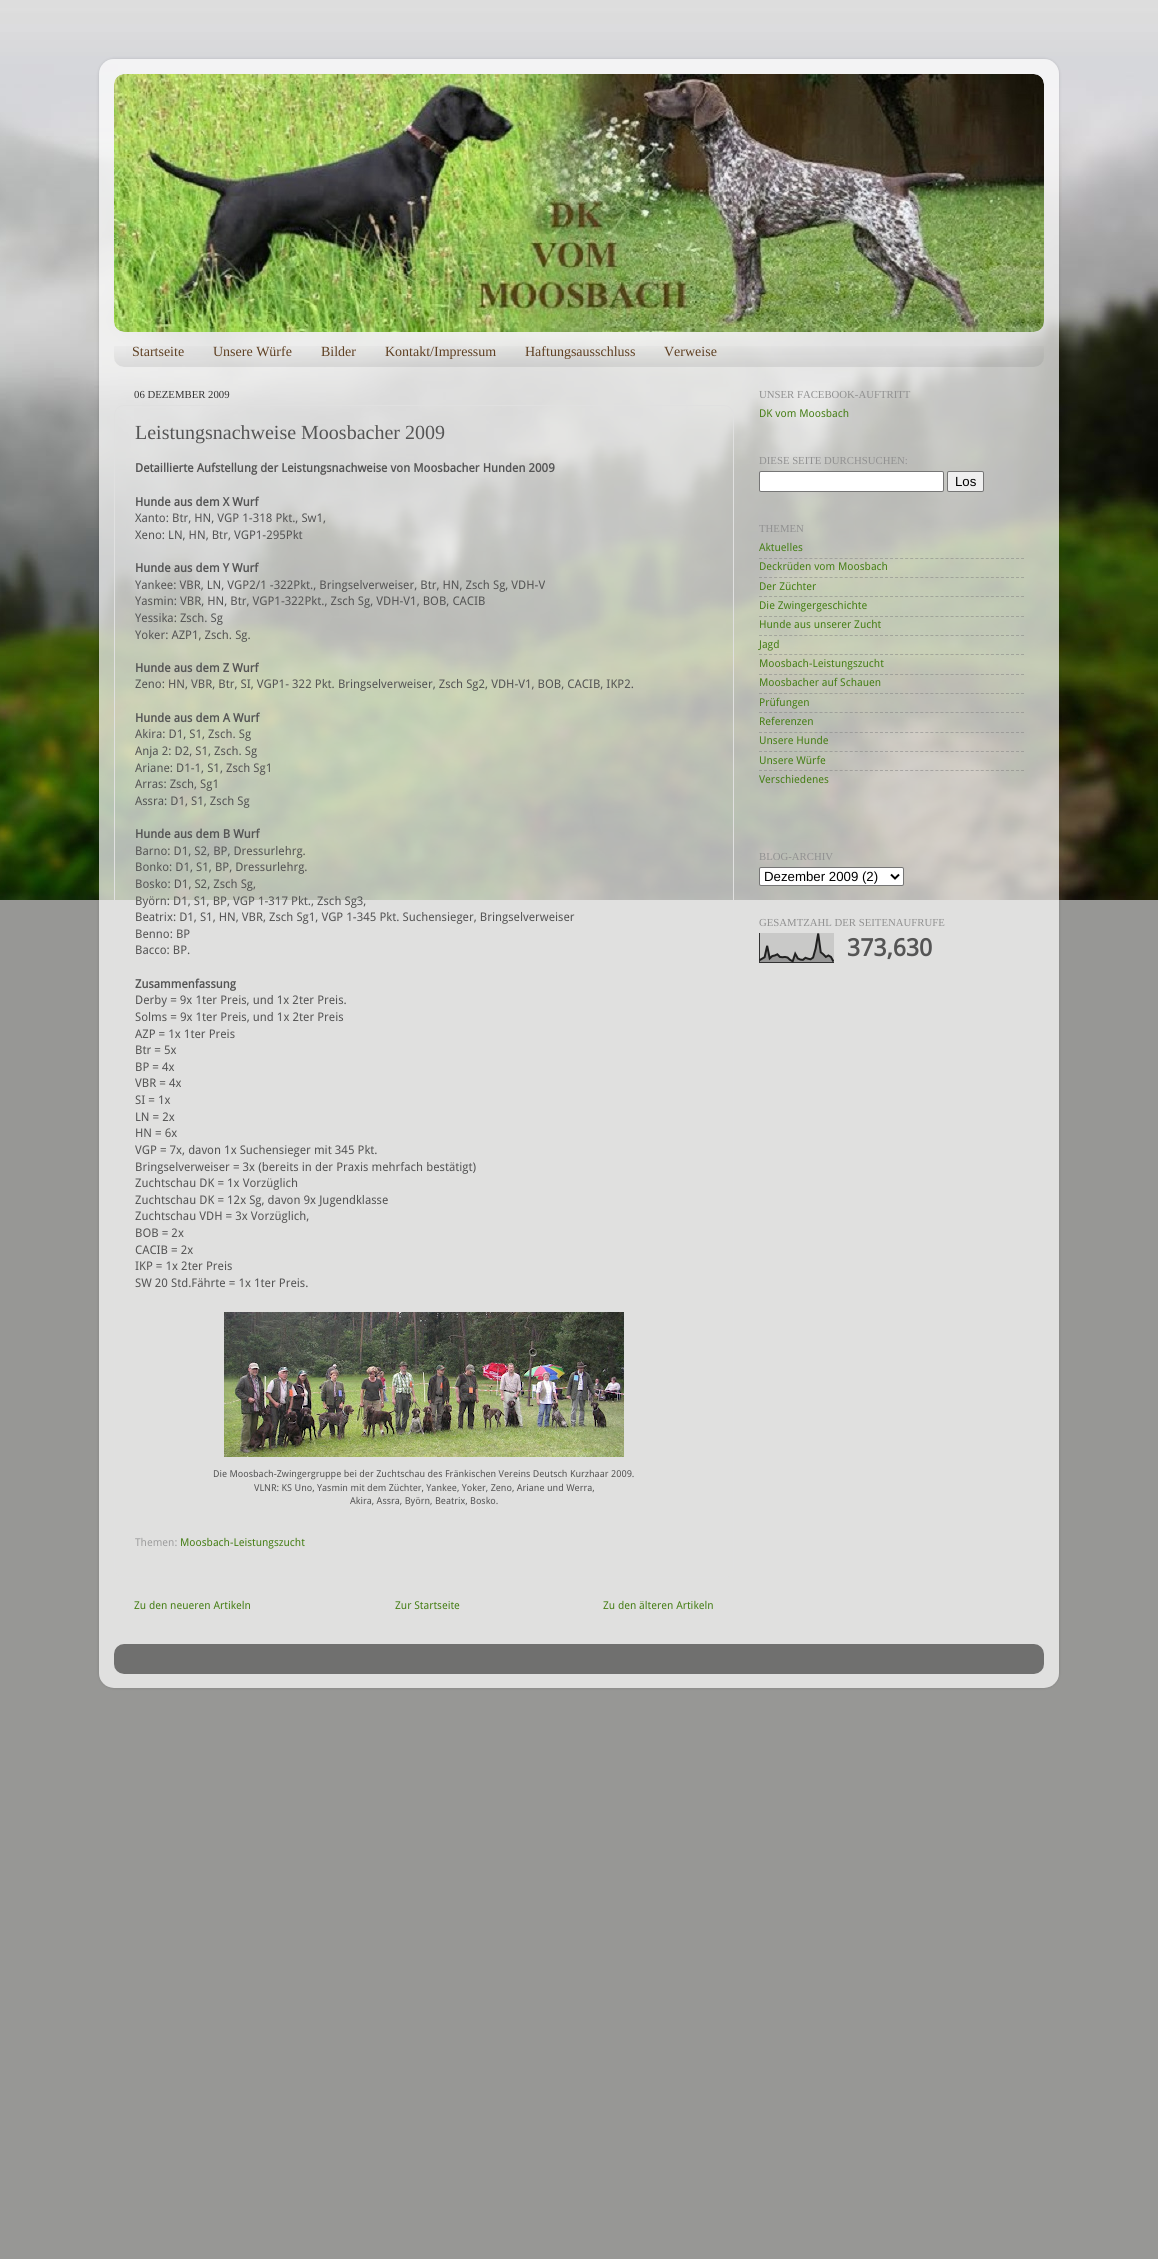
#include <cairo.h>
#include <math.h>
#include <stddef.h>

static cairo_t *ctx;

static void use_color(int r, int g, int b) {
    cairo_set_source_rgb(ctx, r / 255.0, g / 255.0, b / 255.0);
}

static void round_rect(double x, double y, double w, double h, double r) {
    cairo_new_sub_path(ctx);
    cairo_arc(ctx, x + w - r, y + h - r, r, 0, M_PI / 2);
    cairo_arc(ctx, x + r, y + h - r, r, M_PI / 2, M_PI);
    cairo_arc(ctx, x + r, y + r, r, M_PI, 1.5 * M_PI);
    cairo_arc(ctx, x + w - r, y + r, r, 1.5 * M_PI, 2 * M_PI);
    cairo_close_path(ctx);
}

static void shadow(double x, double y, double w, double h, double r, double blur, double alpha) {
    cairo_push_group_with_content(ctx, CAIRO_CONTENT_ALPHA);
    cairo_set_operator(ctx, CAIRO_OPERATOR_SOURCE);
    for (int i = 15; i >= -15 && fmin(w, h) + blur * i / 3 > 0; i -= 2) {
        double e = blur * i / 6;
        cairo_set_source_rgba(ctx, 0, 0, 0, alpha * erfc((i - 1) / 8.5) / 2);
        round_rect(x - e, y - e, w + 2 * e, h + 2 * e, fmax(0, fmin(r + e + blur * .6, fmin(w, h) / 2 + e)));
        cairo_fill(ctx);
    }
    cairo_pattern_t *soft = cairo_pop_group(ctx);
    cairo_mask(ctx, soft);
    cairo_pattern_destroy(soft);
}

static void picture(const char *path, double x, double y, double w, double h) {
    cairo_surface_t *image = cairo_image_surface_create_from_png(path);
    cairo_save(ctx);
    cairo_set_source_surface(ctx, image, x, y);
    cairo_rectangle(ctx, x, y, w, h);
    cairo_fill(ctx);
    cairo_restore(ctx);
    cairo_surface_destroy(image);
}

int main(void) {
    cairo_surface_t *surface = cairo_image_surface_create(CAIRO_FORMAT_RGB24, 1158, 2259);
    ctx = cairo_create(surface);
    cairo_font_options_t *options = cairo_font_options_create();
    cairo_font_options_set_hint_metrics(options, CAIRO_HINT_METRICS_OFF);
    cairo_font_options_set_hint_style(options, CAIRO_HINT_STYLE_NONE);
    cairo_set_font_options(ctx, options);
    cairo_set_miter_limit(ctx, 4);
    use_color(151, 151, 149);
    cairo_paint(ctx);
    picture("img1.png", 0, 0, 1158, 900);
    cairo_save(ctx);
    cairo_set_fill_rule(ctx, CAIRO_FILL_RULE_EVEN_ODD);
    cairo_new_path(ctx);
    cairo_move_to(ctx, 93, 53);
    cairo_line_to(ctx, 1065, 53);
    cairo_line_to(ctx, 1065, 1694);
    cairo_line_to(ctx, 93, 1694);
    cairo_close_path(ctx);
    cairo_move_to(ctx, 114, 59);
    cairo_line_to(ctx, 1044, 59);
    cairo_curve_to(ctx, 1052.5, 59, 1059, 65.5, 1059, 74);
    cairo_line_to(ctx, 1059, 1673);
    cairo_curve_to(ctx, 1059, 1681.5, 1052.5, 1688, 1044, 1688);
    cairo_line_to(ctx, 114, 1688);
    cairo_curve_to(ctx, 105.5, 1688, 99, 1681.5, 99, 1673);
    cairo_line_to(ctx, 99, 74);
    cairo_curve_to(ctx, 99, 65.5, 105.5, 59, 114, 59);
    cairo_close_path(ctx);
    cairo_clip(ctx);
    use_color(0, 0, 0);
    shadow(99, 59, 960, 1629, 15, 1.5, 0.15);
    cairo_restore(ctx);
    picture("img2.png", 99, 59, 960, 1629);
    picture("img3.png", 114, 74, 930, 258);
    picture("img4.png", 114, 346, 930, 21);
    cairo_select_font_face(ctx, "Liberation Serif", CAIRO_FONT_SLANT_NORMAL, CAIRO_FONT_WEIGHT_NORMAL);
    cairo_set_font_size(ctx, 14);
    use_color(95, 64, 34);
    cairo_move_to(ctx, 132, 356);
    cairo_show_text(ctx, "Startseite");
    cairo_move_to(ctx, 213, 356);
    cairo_show_text(ctx, "Unsere Würfe");
    cairo_move_to(ctx, 321, 356);
    cairo_show_text(ctx, "Bilder");
    cairo_move_to(ctx, 385, 356);
    cairo_show_text(ctx, "Kontakt/Impressum");
    cairo_move_to(ctx, 525, 356);
    cairo_show_text(ctx, "Haftungsausschluss");
    cairo_move_to(ctx, 664, 356);
    cairo_show_text(ctx, "Verweise");
    cairo_set_font_size(ctx, 10.75);
    use_color(51, 51, 51);
    cairo_move_to(ctx, 134, 398);
    cairo_show_text(ctx, "06 DEZEMBER 2009");
    round_rect(114.5, 405.5, 619, 1172, 9.5);
    use_color(224, 224, 224);
    cairo_set_line_width(ctx, 1);
    cairo_stroke(ctx);
    cairo_set_font_size(ctx, 20);
    use_color(85, 85, 85);
    cairo_move_to(ctx, 135, 439);
    cairo_show_text(ctx, "Leistungsnachweise Moosbacher 2009");
    cairo_select_font_face(ctx, "Droid Sans", CAIRO_FONT_SLANT_NORMAL, CAIRO_FONT_WEIGHT_BOLD);
    cairo_set_font_size(ctx, 11.9);
    cairo_move_to(ctx, 135, 472);
    cairo_show_text(ctx, "Detaillierte Aufstellung der Leistungsnachweise von Moosbacher Hunden 2009");
    cairo_move_to(ctx, 135, 506);
    cairo_show_text(ctx, "Hunde aus dem X Wurf");
    cairo_select_font_face(ctx, "Droid Sans", CAIRO_FONT_SLANT_NORMAL, CAIRO_FONT_WEIGHT_NORMAL);
    cairo_move_to(ctx, 135, 522);
    cairo_show_text(ctx, "Xanto: Btr, HN, VGP 1-318 Pkt., Sw1,");
    cairo_move_to(ctx, 135, 539);
    cairo_show_text(ctx, "Xeno: LN, HN, Btr, VGP1-295Pkt");
    cairo_select_font_face(ctx, "Droid Sans", CAIRO_FONT_SLANT_NORMAL, CAIRO_FONT_WEIGHT_BOLD);
    cairo_move_to(ctx, 135, 572);
    cairo_show_text(ctx, "Hunde aus dem Y Wurf");
    cairo_select_font_face(ctx, "Droid Sans", CAIRO_FONT_SLANT_NORMAL, CAIRO_FONT_WEIGHT_NORMAL);
    cairo_move_to(ctx, 135, 589);
    cairo_show_text(ctx, "Yankee: VBR, LN, VGP2/1 -322Pkt., Bringselverweiser, Btr, HN, Zsch Sg, VDH-V");
    cairo_move_to(ctx, 135, 605);
    cairo_show_text(ctx, "Yasmin: VBR, HN, Btr, VGP1-322Pkt., Zsch Sg, VDH-V1, BOB, CACIB");
    cairo_move_to(ctx, 135, 622);
    cairo_show_text(ctx, "Yessika: Zsch. Sg");
    cairo_move_to(ctx, 135, 639);
    cairo_show_text(ctx, "Yoker: AZP1, Zsch. Sg.");
    cairo_select_font_face(ctx, "Droid Sans", CAIRO_FONT_SLANT_NORMAL, CAIRO_FONT_WEIGHT_BOLD);
    cairo_move_to(ctx, 135, 672);
    cairo_show_text(ctx, "Hunde aus dem Z Wurf");
    cairo_select_font_face(ctx, "Droid Sans", CAIRO_FONT_SLANT_NORMAL, CAIRO_FONT_WEIGHT_NORMAL);
    cairo_move_to(ctx, 135, 688);
    cairo_show_text(ctx, "Zeno: HN, VBR, Btr, SI, VGP1- 322 Pkt. Bringselverweiser, Zsch Sg2, VDH-V1, BOB, CACIB, IKP2.");
    cairo_select_font_face(ctx, "Droid Sans", CAIRO_FONT_SLANT_NORMAL, CAIRO_FONT_WEIGHT_BOLD);
    cairo_move_to(ctx, 135, 722);
    cairo_show_text(ctx, "Hunde aus dem A Wurf");
    cairo_select_font_face(ctx, "Droid Sans", CAIRO_FONT_SLANT_NORMAL, CAIRO_FONT_WEIGHT_NORMAL);
    cairo_move_to(ctx, 135, 738);
    cairo_show_text(ctx, "Akira: D1, S1, Zsch. Sg");
    cairo_move_to(ctx, 135, 755);
    cairo_show_text(ctx, "Anja 2: D2, S1, Zsch. Sg");
    cairo_move_to(ctx, 135, 772);
    cairo_show_text(ctx, "Ariane: D1-1, S1, Zsch Sg1");
    cairo_move_to(ctx, 135, 788);
    cairo_show_text(ctx, "Arras: Zsch, Sg1");
    cairo_move_to(ctx, 135, 805);
    cairo_show_text(ctx, "Assra: D1, S1, Zsch Sg");
    cairo_select_font_face(ctx, "Droid Sans", CAIRO_FONT_SLANT_NORMAL, CAIRO_FONT_WEIGHT_BOLD);
    cairo_move_to(ctx, 135, 838);
    cairo_show_text(ctx, "Hunde aus dem B Wurf");
    cairo_select_font_face(ctx, "Droid Sans", CAIRO_FONT_SLANT_NORMAL, CAIRO_FONT_WEIGHT_NORMAL);
    cairo_move_to(ctx, 135, 855);
    cairo_show_text(ctx, "Barno: D1, S2, BP, Dressurlehrg.");
    cairo_move_to(ctx, 135, 871);
    cairo_show_text(ctx, "Bonko: D1, S1, BP, Dressurlehrg.");
    cairo_move_to(ctx, 135, 888);
    cairo_show_text(ctx, "Bosko: D1, S2, Zsch Sg,");
    cairo_move_to(ctx, 135, 905);
    cairo_show_text(ctx, "Byörn: D1, S1, BP, VGP 1-317 Pkt., Zsch Sg3,");
    cairo_move_to(ctx, 135, 921);
    cairo_show_text(ctx, "Beatrix: D1, S1, HN, VBR, Zsch Sg1, VGP 1-345 Pkt. Suchensieger, Bringselverweiser");
    cairo_move_to(ctx, 135, 938);
    cairo_show_text(ctx, "Benno: BP");
    cairo_move_to(ctx, 135, 954);
    cairo_show_text(ctx, "Bacco: BP.");
    cairo_select_font_face(ctx, "Droid Sans", CAIRO_FONT_SLANT_NORMAL, CAIRO_FONT_WEIGHT_BOLD);
    cairo_move_to(ctx, 135, 988);
    cairo_show_text(ctx, "Zusammenfassung");
    cairo_select_font_face(ctx, "Droid Sans", CAIRO_FONT_SLANT_NORMAL, CAIRO_FONT_WEIGHT_NORMAL);
    cairo_move_to(ctx, 135, 1004);
    cairo_show_text(ctx, "Derby = 9x 1ter Preis, und 1x 2ter Preis.");
    cairo_move_to(ctx, 135, 1021);
    cairo_show_text(ctx, "Solms = 9x 1ter Preis, und 1x 2ter Preis");
    cairo_move_to(ctx, 135, 1038);
    cairo_show_text(ctx, "AZP = 1x 1ter Preis");
    cairo_move_to(ctx, 135, 1054);
    cairo_show_text(ctx, "Btr = 5x");
    cairo_move_to(ctx, 135, 1071);
    cairo_show_text(ctx, "BP = 4x");
    cairo_move_to(ctx, 135, 1087);
    cairo_show_text(ctx, "VBR = 4x");
    cairo_move_to(ctx, 135, 1104);
    cairo_show_text(ctx, "SI = 1x");
    cairo_move_to(ctx, 135, 1121);
    cairo_show_text(ctx, "LN = 2x");
    cairo_move_to(ctx, 135, 1137);
    cairo_show_text(ctx, "HN = 6x");
    cairo_move_to(ctx, 135, 1154);
    cairo_show_text(ctx, "VGP = 7x, davon 1x Suchensieger mit 345 Pkt.");
    cairo_move_to(ctx, 135, 1171);
    cairo_show_text(ctx, "Bringselverweiser = 3x (bereits in der Praxis mehrfach bestätigt)");
    cairo_move_to(ctx, 135, 1187);
    cairo_show_text(ctx, "Zuchtschau DK = 1x Vorzüglich");
    cairo_move_to(ctx, 135, 1204);
    cairo_show_text(ctx, "Zuchtschau DK = 12x Sg, davon 9x Jugendklasse");
    cairo_move_to(ctx, 135, 1220);
    cairo_show_text(ctx, "Zuchtschau VDH = 3x Vorzüglich,");
    cairo_move_to(ctx, 135, 1237);
    cairo_show_text(ctx, "BOB = 2x");
    cairo_move_to(ctx, 135, 1254);
    cairo_show_text(ctx, "CACIB = 2x");
    cairo_move_to(ctx, 135, 1270);
    cairo_show_text(ctx, "IKP = 1x 2ter Preis");
    cairo_move_to(ctx, 135, 1287);
    cairo_show_text(ctx, "SW 20 Std.Fährte = 1x 1ter Preis.");
    picture("img5.png", 224, 1312, 400, 145);
    cairo_set_font_size(ctx, 9.5);
    cairo_move_to(ctx, 213, 1477);
    cairo_show_text(ctx, "Die Moosbach-Zwingergruppe bei der Zuchtschau des Fränkischen Vereins Deutsch Kurzhaar 2009.");
    cairo_move_to(ctx, 254, 1491);
    cairo_show_text(ctx, "VLNR: KS Uno, Yasmin mit dem Züchter, Yankee, Yoker, Zeno, Ariane und Werra,");
    cairo_move_to(ctx, 350, 1504);
    cairo_show_text(ctx, "Akira, Assra, Byörn, Beatrix, Bosko.");
    cairo_set_font_size(ctx, 10.75);
    use_color(159, 159, 159);
    cairo_move_to(ctx, 135, 1546);
    cairo_show_text(ctx, "Themen:");
    use_color(71, 127, 23);
    cairo_move_to(ctx, 180, 1546);
    cairo_show_text(ctx, "Moosbach-Leistungszucht");
    cairo_move_to(ctx, 134, 1609);
    cairo_show_text(ctx, "Zu den neueren Artikeln");
    cairo_move_to(ctx, 395, 1609);
    cairo_show_text(ctx, "Zur Startseite");
    cairo_move_to(ctx, 603, 1609);
    cairo_show_text(ctx, "Zu den älteren Artikeln");
    cairo_select_font_face(ctx, "Liberation Serif", CAIRO_FONT_SLANT_NORMAL, CAIRO_FONT_WEIGHT_NORMAL);
    use_color(144, 144, 144);
    cairo_move_to(ctx, 759, 398);
    cairo_show_text(ctx, "UNSER FACEBOOK-AUFTRITT");
    cairo_select_font_face(ctx, "Droid Sans", CAIRO_FONT_SLANT_NORMAL, CAIRO_FONT_WEIGHT_NORMAL);
    use_color(71, 127, 23);
    cairo_move_to(ctx, 759, 417);
    cairo_show_text(ctx, "DK vom Moosbach");
    cairo_select_font_face(ctx, "Liberation Serif", CAIRO_FONT_SLANT_NORMAL, CAIRO_FONT_WEIGHT_NORMAL);
    use_color(144, 144, 144);
    cairo_move_to(ctx, 759, 464);
    cairo_show_text(ctx, "DIESE SEITE DURCHSUCHEN:");
    use_color(255, 255, 255);
    round_rect(759.5, 471.5, 184, 20, 1.5);
    cairo_fill_preserve(ctx);
    use_color(118, 118, 118);
    cairo_stroke(ctx);
    use_color(239, 239, 239);
    round_rect(947.5, 471.5, 36, 20, 1.5);
    cairo_fill_preserve(ctx);
    use_color(118, 118, 118);
    cairo_stroke(ctx);
    cairo_select_font_face(ctx, "Liberation Sans", CAIRO_FONT_SLANT_NORMAL, CAIRO_FONT_WEIGHT_NORMAL);
    cairo_set_font_size(ctx, 13.25);
    use_color(0, 0, 0);
    cairo_move_to(ctx, 955, 486);
    cairo_show_text(ctx, "Los");
    cairo_select_font_face(ctx, "Liberation Serif", CAIRO_FONT_SLANT_NORMAL, CAIRO_FONT_WEIGHT_NORMAL);
    cairo_set_font_size(ctx, 10.75);
    use_color(144, 144, 144);
    cairo_move_to(ctx, 759, 532);
    cairo_show_text(ctx, "THEMEN");
    cairo_select_font_face(ctx, "Droid Sans", CAIRO_FONT_SLANT_NORMAL, CAIRO_FONT_WEIGHT_NORMAL);
    use_color(71, 127, 23);
    cairo_move_to(ctx, 759, 551);
    cairo_show_text(ctx, "Aktuelles");
    cairo_new_path(ctx);
    cairo_move_to(ctx, 759, 558.5);
    cairo_line_to(ctx, 1024, 558.5);
    cairo_set_source_rgba(ctx, 0.502, 0.502, 0.502, 0.5);
    cairo_set_dash(ctx, (double[]){3, 2.04}, 2, 0);
    cairo_stroke(ctx);
    use_color(71, 127, 23);
    cairo_move_to(ctx, 759, 570);
    cairo_show_text(ctx, "Deckrüden vom Moosbach");
    cairo_new_path(ctx);
    cairo_move_to(ctx, 759, 577.5);
    cairo_line_to(ctx, 1024, 577.5);
    cairo_set_source_rgba(ctx, 0.502, 0.502, 0.502, 0.5);
    cairo_stroke(ctx);
    use_color(71, 127, 23);
    cairo_move_to(ctx, 759, 590);
    cairo_show_text(ctx, "Der Züchter");
    cairo_new_path(ctx);
    cairo_move_to(ctx, 759, 596.5);
    cairo_line_to(ctx, 1024, 596.5);
    cairo_set_source_rgba(ctx, 0.502, 0.502, 0.502, 0.5);
    cairo_stroke(ctx);
    use_color(71, 127, 23);
    cairo_move_to(ctx, 759, 609);
    cairo_show_text(ctx, "Die Zwingergeschichte");
    cairo_new_path(ctx);
    cairo_move_to(ctx, 759, 616.5);
    cairo_line_to(ctx, 1024, 616.5);
    cairo_set_source_rgba(ctx, 0.502, 0.502, 0.502, 0.5);
    cairo_stroke(ctx);
    use_color(71, 127, 23);
    cairo_move_to(ctx, 759, 628);
    cairo_show_text(ctx, "Hunde aus unserer Zucht");
    cairo_new_path(ctx);
    cairo_move_to(ctx, 759, 635.5);
    cairo_line_to(ctx, 1024, 635.5);
    cairo_set_source_rgba(ctx, 0.502, 0.502, 0.502, 0.5);
    cairo_stroke(ctx);
    use_color(71, 127, 23);
    cairo_move_to(ctx, 759, 648);
    cairo_show_text(ctx, "Jagd");
    cairo_new_path(ctx);
    cairo_move_to(ctx, 759, 654.5);
    cairo_line_to(ctx, 1024, 654.5);
    cairo_set_source_rgba(ctx, 0.502, 0.502, 0.502, 0.5);
    cairo_stroke(ctx);
    use_color(71, 127, 23);
    cairo_move_to(ctx, 759, 667);
    cairo_show_text(ctx, "Moosbach-Leistungszucht");
    cairo_new_path(ctx);
    cairo_move_to(ctx, 759, 674.5);
    cairo_line_to(ctx, 1024, 674.5);
    cairo_set_source_rgba(ctx, 0.502, 0.502, 0.502, 0.5);
    cairo_stroke(ctx);
    use_color(71, 127, 23);
    cairo_move_to(ctx, 759, 686);
    cairo_show_text(ctx, "Moosbacher auf Schauen");
    cairo_new_path(ctx);
    cairo_move_to(ctx, 759, 693.5);
    cairo_line_to(ctx, 1024, 693.5);
    cairo_set_source_rgba(ctx, 0.502, 0.502, 0.502, 0.5);
    cairo_stroke(ctx);
    use_color(71, 127, 23);
    cairo_move_to(ctx, 759, 706);
    cairo_show_text(ctx, "Prüfungen");
    cairo_new_path(ctx);
    cairo_move_to(ctx, 759, 712.5);
    cairo_line_to(ctx, 1024, 712.5);
    cairo_set_source_rgba(ctx, 0.502, 0.502, 0.502, 0.5);
    cairo_stroke(ctx);
    use_color(71, 127, 23);
    cairo_move_to(ctx, 759, 725);
    cairo_show_text(ctx, "Referenzen");
    cairo_new_path(ctx);
    cairo_move_to(ctx, 759, 732.5);
    cairo_line_to(ctx, 1024, 732.5);
    cairo_set_source_rgba(ctx, 0.502, 0.502, 0.502, 0.5);
    cairo_stroke(ctx);
    use_color(71, 127, 23);
    cairo_move_to(ctx, 759, 744);
    cairo_show_text(ctx, "Unsere Hunde");
    cairo_new_path(ctx);
    cairo_move_to(ctx, 759, 751.5);
    cairo_line_to(ctx, 1024, 751.5);
    cairo_set_source_rgba(ctx, 0.502, 0.502, 0.502, 0.5);
    cairo_stroke(ctx);
    use_color(71, 127, 23);
    cairo_move_to(ctx, 759, 764);
    cairo_show_text(ctx, "Unsere Würfe");
    cairo_new_path(ctx);
    cairo_move_to(ctx, 759, 770.5);
    cairo_line_to(ctx, 1024, 770.5);
    cairo_set_source_rgba(ctx, 0.502, 0.502, 0.502, 0.5);
    cairo_stroke(ctx);
    use_color(71, 127, 23);
    cairo_move_to(ctx, 759, 783);
    cairo_show_text(ctx, "Verschiedenes");
    cairo_select_font_face(ctx, "Liberation Serif", CAIRO_FONT_SLANT_NORMAL, CAIRO_FONT_WEIGHT_NORMAL);
    use_color(144, 144, 144);
    cairo_move_to(ctx, 759, 860);
    cairo_show_text(ctx, "BLOG-ARCHIV");
    use_color(255, 255, 255);
    round_rect(759.5, 867.5, 144, 18, 1.5);
    cairo_fill_preserve(ctx);
    use_color(118, 118, 118);
    cairo_set_dash(ctx, NULL, 0, 0);
    cairo_stroke(ctx);
    cairo_new_path(ctx);
    cairo_move_to(ctx, 891, 874.5);
    cairo_line_to(ctx, 895, 878.5);
    cairo_line_to(ctx, 899, 874.5);
    use_color(0, 0, 0);
    cairo_set_line_width(ctx, 2);
    cairo_stroke(ctx);
    cairo_select_font_face(ctx, "Liberation Sans", CAIRO_FONT_SLANT_NORMAL, CAIRO_FONT_WEIGHT_NORMAL);
    cairo_set_font_size(ctx, 13.25);
    cairo_move_to(ctx, 764, 881);
    cairo_show_text(ctx, "Dezember 2009 (2)");
    cairo_select_font_face(ctx, "Liberation Serif", CAIRO_FONT_SLANT_NORMAL, CAIRO_FONT_WEIGHT_NORMAL);
    cairo_set_font_size(ctx, 10.75);
    use_color(144, 144, 144);
    cairo_move_to(ctx, 759, 926);
    cairo_show_text(ctx, "GESAMTZAHL DER SEITENAUFRUFE");
    picture("img6.png", 759, 933, 75, 30);
    cairo_select_font_face(ctx, "Droid Sans", CAIRO_FONT_SLANT_NORMAL, CAIRO_FONT_WEIGHT_BOLD);
    cairo_set_font_size(ctx, 24);
    use_color(85, 85, 85);
    cairo_move_to(ctx, 847, 956);
    cairo_show_text(ctx, "373,630");
    picture("img7.png", 114, 1644, 930, 30);
    cairo_surface_write_to_png(surface, "result.png");
    cairo_font_options_destroy(options);
    cairo_destroy(ctx);
    cairo_surface_destroy(surface);
    return 0;
}
